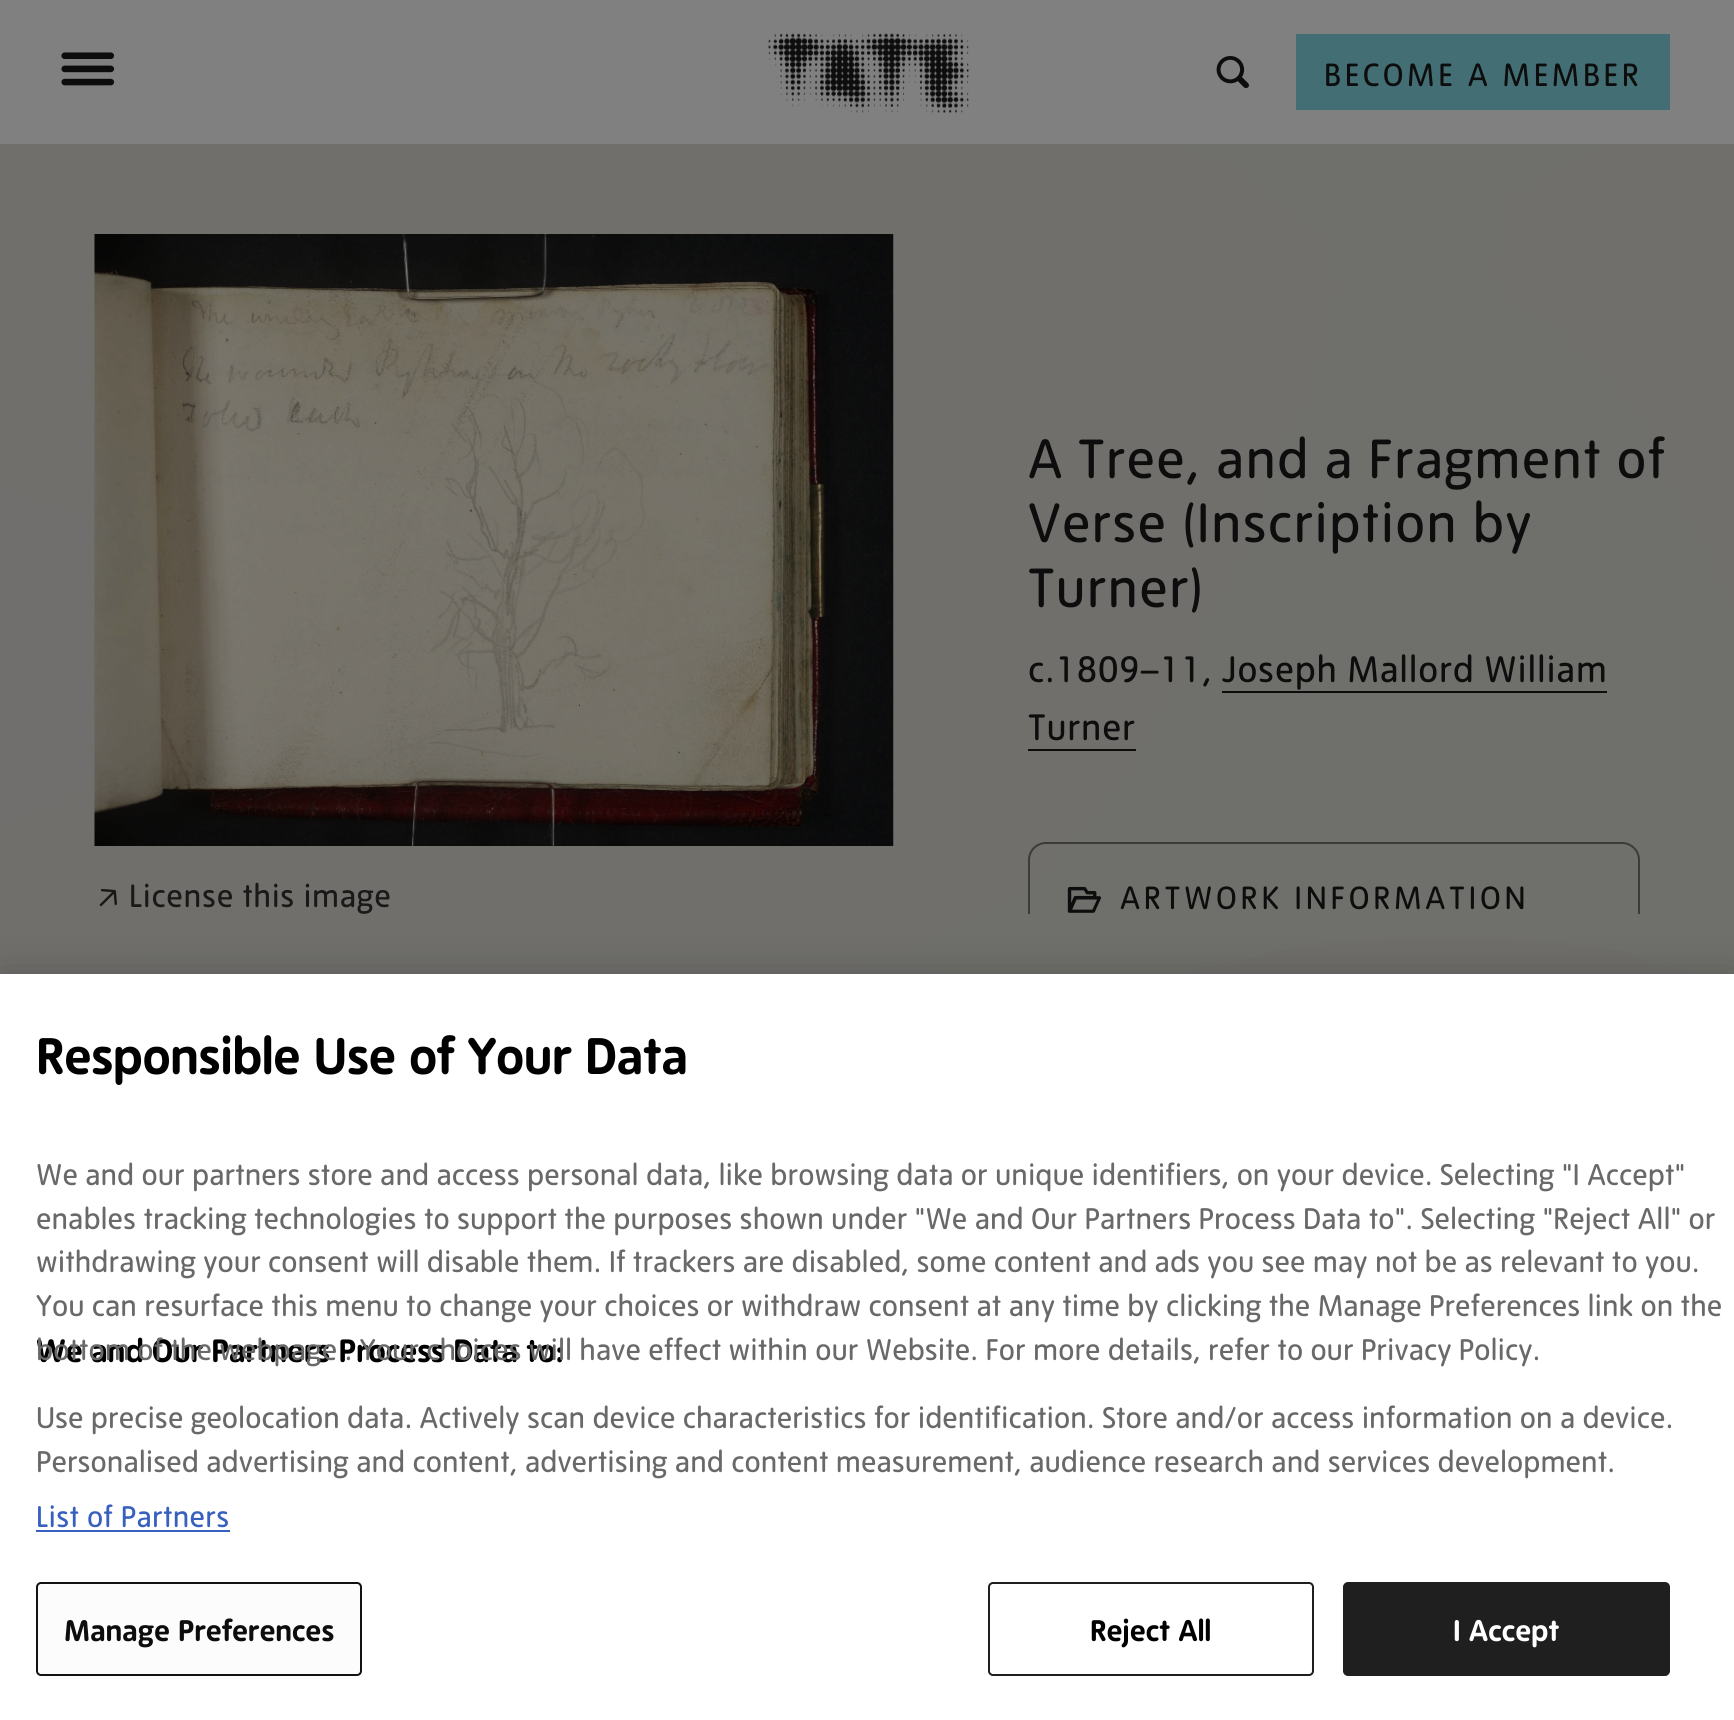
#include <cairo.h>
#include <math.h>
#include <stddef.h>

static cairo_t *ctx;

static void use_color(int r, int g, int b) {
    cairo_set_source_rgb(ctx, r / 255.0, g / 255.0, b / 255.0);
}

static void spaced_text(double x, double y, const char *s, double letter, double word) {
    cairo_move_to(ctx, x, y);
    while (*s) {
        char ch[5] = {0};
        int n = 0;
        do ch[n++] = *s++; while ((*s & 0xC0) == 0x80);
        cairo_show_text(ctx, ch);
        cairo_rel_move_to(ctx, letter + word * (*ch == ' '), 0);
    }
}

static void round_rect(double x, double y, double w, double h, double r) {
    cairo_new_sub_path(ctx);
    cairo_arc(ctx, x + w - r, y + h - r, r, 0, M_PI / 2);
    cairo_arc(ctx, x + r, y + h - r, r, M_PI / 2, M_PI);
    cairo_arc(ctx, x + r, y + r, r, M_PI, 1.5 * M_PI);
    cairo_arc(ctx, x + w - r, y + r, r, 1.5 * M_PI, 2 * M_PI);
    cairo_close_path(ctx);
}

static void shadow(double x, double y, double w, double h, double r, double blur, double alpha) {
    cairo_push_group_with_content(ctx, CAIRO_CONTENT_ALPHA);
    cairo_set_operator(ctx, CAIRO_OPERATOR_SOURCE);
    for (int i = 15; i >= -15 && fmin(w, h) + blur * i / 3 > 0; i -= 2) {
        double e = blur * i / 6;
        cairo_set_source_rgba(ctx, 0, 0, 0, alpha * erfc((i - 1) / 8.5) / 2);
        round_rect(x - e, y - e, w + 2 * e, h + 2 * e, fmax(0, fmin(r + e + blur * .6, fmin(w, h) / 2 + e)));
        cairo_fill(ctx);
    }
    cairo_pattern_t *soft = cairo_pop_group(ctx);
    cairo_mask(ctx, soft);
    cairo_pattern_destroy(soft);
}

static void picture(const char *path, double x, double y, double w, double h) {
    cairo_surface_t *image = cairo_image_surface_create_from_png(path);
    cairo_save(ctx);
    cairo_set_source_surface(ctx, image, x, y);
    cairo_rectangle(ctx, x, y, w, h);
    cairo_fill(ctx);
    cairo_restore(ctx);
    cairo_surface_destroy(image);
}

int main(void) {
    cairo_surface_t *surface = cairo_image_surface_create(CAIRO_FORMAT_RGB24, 1734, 1720);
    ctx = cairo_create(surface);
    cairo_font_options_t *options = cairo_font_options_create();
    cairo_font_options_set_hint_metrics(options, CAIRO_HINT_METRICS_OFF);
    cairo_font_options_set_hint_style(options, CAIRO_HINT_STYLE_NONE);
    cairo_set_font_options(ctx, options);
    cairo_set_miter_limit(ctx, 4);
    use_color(111, 111, 111);
    cairo_paint(ctx);
    use_color(128, 128, 128);
    cairo_rectangle(ctx, 0, 0, 1734, 144);
    cairo_fill(ctx);
    picture("img1.png", 61, 52, 54, 34);
    picture("img2.png", 768, 33, 201, 80);
    picture("img3.png", 1216, 56, 33, 33);
    use_color(67, 111, 116);
    cairo_rectangle(ctx, 1296, 34, 374, 76);
    cairo_fill(ctx);
    cairo_select_font_face(ctx, "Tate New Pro", CAIRO_FONT_SLANT_NORMAL, CAIRO_FONT_WEIGHT_NORMAL);
    cairo_set_font_size(ctx, 31.5);
    use_color(13, 13, 13);
    spaced_text(1324, 86, "BECOME A MEMBER", 3.5, 0);
    picture("img4.png", 0, 144, 1734, 830);
    picture("img5.png", 94, 234, 800, 612);
    picture("img6.png", 99, 888, 18, 19);
    use_color(25, 25, 25);
    spaced_text(129, 907, "License this image", 0.6, 0);
    cairo_set_font_size(ctx, 54);
    use_color(13, 13, 13);
    spaced_text(1028, 478, "A Tree, and a Fragment of", 1.1, 0);
    spaced_text(1028, 542, "Verse (Inscription by", 1.1, 0);
    spaced_text(1028, 607, "Turner)", 1.1, 0);
    cairo_set_font_size(ctx, 36);
    spaced_text(1028, 682, "c.1809–11, Joseph Mallord William", 0.75, 0);
    spaced_text(1028, 740, "Turner", 0.75, 0);
    cairo_rectangle(ctx, 1222, 691, 385, 2);
    cairo_fill(ctx);
    cairo_rectangle(ctx, 1028, 749, 108, 2);
    cairo_fill(ctx);
    cairo_save(ctx);
    cairo_rectangle(ctx, 1028, 234, 666, 680);
    cairo_clip(ctx);
    round_rect(1029, 843, 610, 110, 17);
    use_color(59, 59, 59);
    cairo_stroke(ctx);
    cairo_restore(ctx);
    picture("img7.png", 1067, 886, 34, 27);
    cairo_set_font_size(ctx, 31.5);
    spaced_text(1120, 909, "ARTWORK INFORMATION", 3.75, 0);
    use_color(0, 0, 0);
    shadow(0, 974, 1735, 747, 0, 20, 0.2);
    use_color(255, 255, 255);
    cairo_rectangle(ctx, 0, 974, 1734, 746);
    cairo_fill(ctx);
    cairo_select_font_face(ctx, "Tate New Pro", CAIRO_FONT_SLANT_NORMAL, CAIRO_FONT_WEIGHT_BOLD);
    cairo_set_font_size(ctx, 50.4);
    use_color(0, 0, 0);
    cairo_move_to(ctx, 36, 1074);
    cairo_show_text(ctx, "Responsible Use of Your Data");
    cairo_select_font_face(ctx, "Tate New Pro", CAIRO_FONT_SLANT_NORMAL, CAIRO_FONT_WEIGHT_NORMAL);
    cairo_set_font_size(ctx, 29.27);
    use_color(105, 105, 105);
    cairo_move_to(ctx, 36, 1185);
    cairo_show_text(ctx, "We and our partners store and access personal data, like browsing data or unique identifiers, on your device. Selecting \"I Accept\"");
    cairo_move_to(ctx, 36, 1229);
    cairo_show_text(ctx, "enables tracking technologies to support the purposes shown under \"We and Our Partners Process Data to\". Selecting \"Reject All\" or");
    cairo_move_to(ctx, 36, 1272);
    cairo_show_text(ctx, "withdrawing your consent will disable them. If trackers are disabled, some content and ads you see may not be as relevant to you.");
    cairo_move_to(ctx, 36, 1316);
    cairo_show_text(ctx, "You can resurface this menu to change your choices or withdraw consent at any time by clicking the Manage Preferences link on the");
    cairo_select_font_face(ctx, "Tate New Pro", CAIRO_FONT_SLANT_NORMAL, CAIRO_FONT_WEIGHT_BOLD);
    cairo_set_font_size(ctx, 31.7);
    use_color(0, 0, 0);
    cairo_move_to(ctx, 36, 1362);
    cairo_show_text(ctx, "We and Our Partners Process Data to:");
    cairo_select_font_face(ctx, "Tate New Pro", CAIRO_FONT_SLANT_NORMAL, CAIRO_FONT_WEIGHT_NORMAL);
    cairo_set_font_size(ctx, 29.27);
    use_color(105, 105, 105);
    cairo_move_to(ctx, 36, 1360);
    cairo_show_text(ctx, "bottom of the webpage . Your choices will have effect within our Website. For more details, refer to our Privacy Policy.");
    cairo_move_to(ctx, 36, 1428);
    cairo_show_text(ctx, "Use precise geolocation data. Actively scan device characteristics for identification. Store and/or access information on a device.");
    cairo_move_to(ctx, 36, 1472);
    cairo_show_text(ctx, "Personalised advertising and content, advertising and content measurement, audience research and services development.");
    use_color(56, 96, 190);
    spaced_text(36, 1527, "List of Partners", 0.25, 0);
    cairo_rectangle(ctx, 36, 1530, 194, 2);
    cairo_fill(ctx);
    use_color(252, 252, 252);
    round_rect(37, 1583, 324, 92, 4);
    cairo_fill_preserve(ctx);
    use_color(17, 18, 18);
    cairo_stroke(ctx);
    cairo_select_font_face(ctx, "Tate New Pro", CAIRO_FONT_SLANT_NORMAL, CAIRO_FONT_WEIGHT_BOLD);
    use_color(13, 13, 13);
    spaced_text(64, 1641, "Manage Preferences", 0.25, 0);
    round_rect(989, 1583, 324, 92, 4);
    use_color(31, 31, 31);
    cairo_stroke(ctx);
    use_color(0, 0, 0);
    spaced_text(1090, 1641, "Reject All", 0.25, 0);
    use_color(31, 31, 31);
    round_rect(1344, 1583, 325, 92, 4);
    cairo_fill_preserve(ctx);
    cairo_stroke(ctx);
    use_color(255, 255, 255);
    spaced_text(1453, 1641, "I Accept", 0.25, 0);
    cairo_surface_write_to_png(surface, "result.png");
    cairo_font_options_destroy(options);
    cairo_destroy(ctx);
    cairo_surface_destroy(surface);
    return 0;
}
